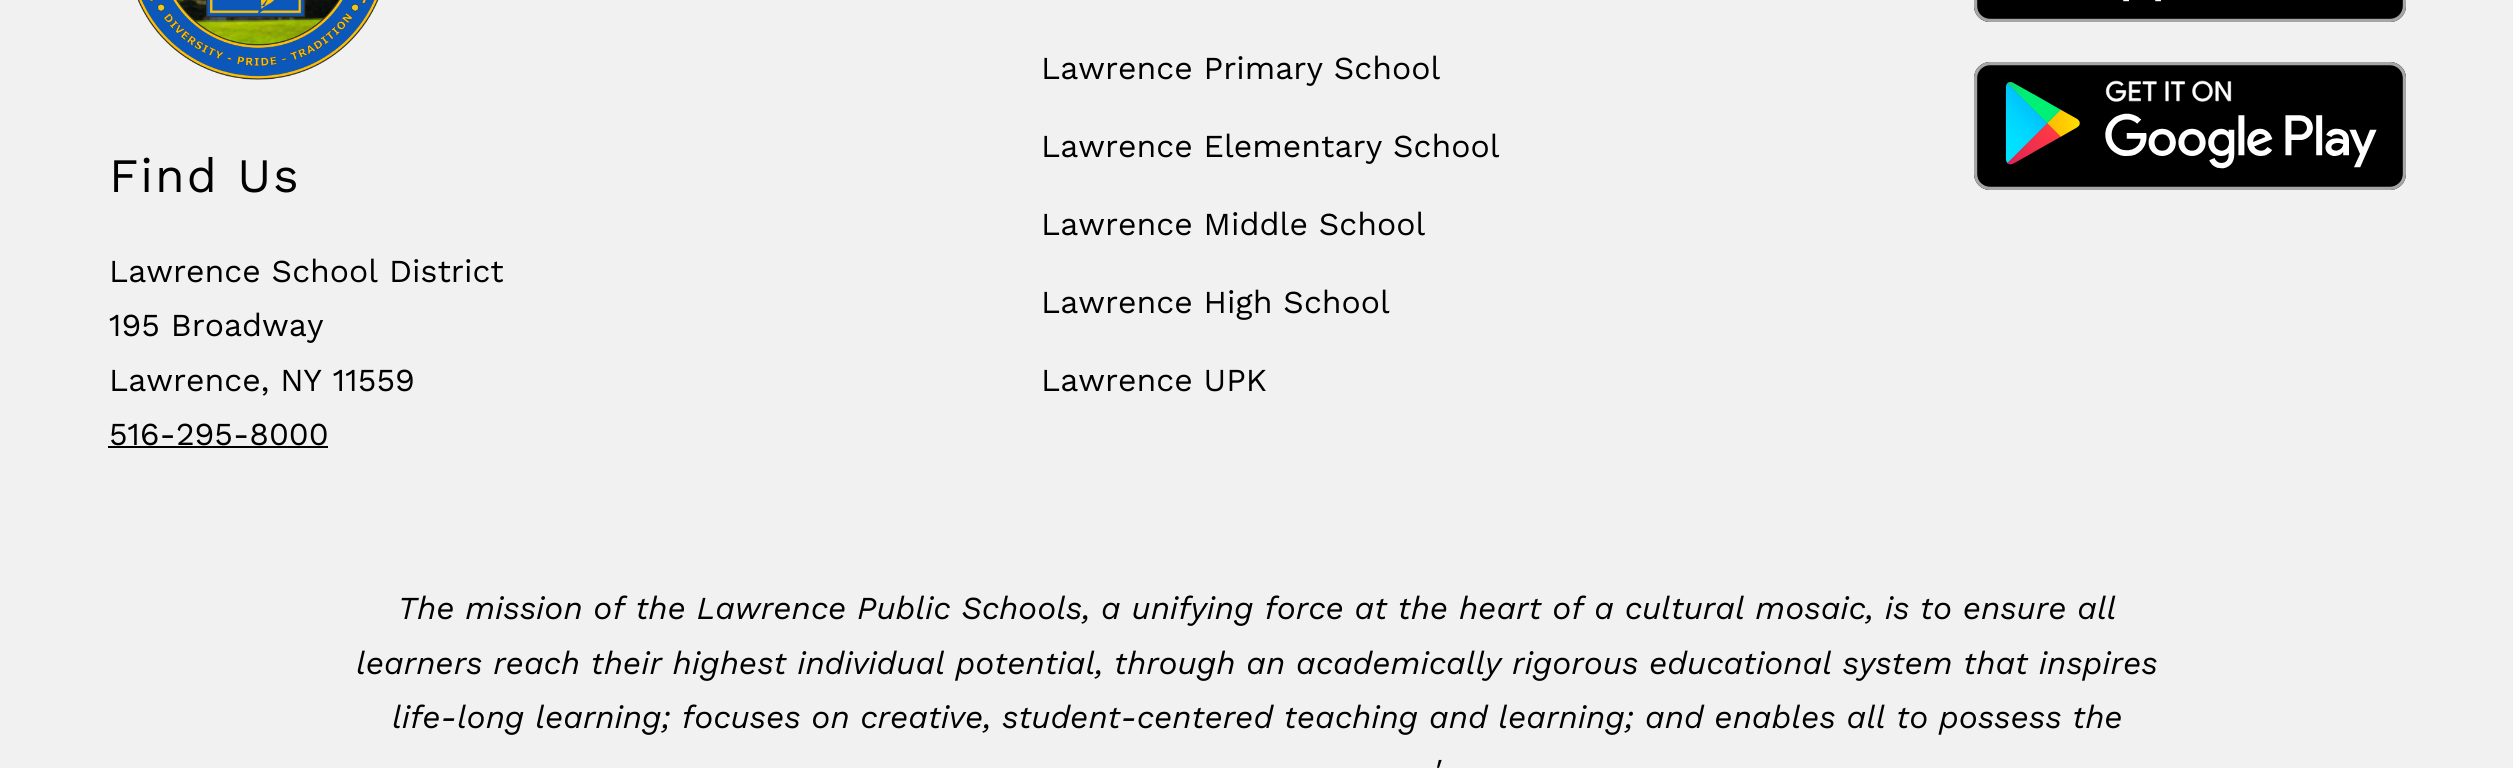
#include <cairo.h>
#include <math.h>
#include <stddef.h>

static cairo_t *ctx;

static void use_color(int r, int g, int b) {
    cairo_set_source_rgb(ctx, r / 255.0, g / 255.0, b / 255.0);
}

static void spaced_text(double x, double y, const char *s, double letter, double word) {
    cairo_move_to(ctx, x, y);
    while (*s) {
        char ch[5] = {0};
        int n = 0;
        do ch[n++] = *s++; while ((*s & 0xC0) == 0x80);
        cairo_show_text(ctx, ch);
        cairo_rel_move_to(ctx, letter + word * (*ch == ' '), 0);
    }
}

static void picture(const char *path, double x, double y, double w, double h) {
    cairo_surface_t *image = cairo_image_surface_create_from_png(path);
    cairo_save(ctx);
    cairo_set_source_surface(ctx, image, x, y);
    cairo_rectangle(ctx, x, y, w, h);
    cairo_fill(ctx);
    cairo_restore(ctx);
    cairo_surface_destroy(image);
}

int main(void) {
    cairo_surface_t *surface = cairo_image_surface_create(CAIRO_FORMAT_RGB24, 2513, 768);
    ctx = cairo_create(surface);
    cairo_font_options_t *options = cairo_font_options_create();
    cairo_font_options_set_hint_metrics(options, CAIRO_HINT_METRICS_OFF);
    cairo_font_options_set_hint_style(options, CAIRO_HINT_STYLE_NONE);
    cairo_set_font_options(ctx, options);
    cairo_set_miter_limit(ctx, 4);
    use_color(241, 241, 241);
    cairo_paint(ctx);
    picture("img1.png", 137, 0, 242, 80);
    cairo_select_font_face(ctx, "Work Sans", CAIRO_FONT_SLANT_NORMAL, CAIRO_FONT_WEIGHT_NORMAL);
    cairo_set_font_size(ctx, 48);
    use_color(0, 0, 0);
    spaced_text(109, 192, "Find Us", 2, 0);
    cairo_set_font_size(ctx, 32);
    cairo_move_to(ctx, 109, 282);
    cairo_show_text(ctx, "Lawrence School District");
    cairo_move_to(ctx, 109, 336);
    cairo_show_text(ctx, "195 Broadway");
    cairo_move_to(ctx, 109, 391);
    cairo_show_text(ctx, "Lawrence, NY 11559");
    cairo_move_to(ctx, 109, 445);
    cairo_show_text(ctx, "516-295-8000");
    cairo_rectangle(ctx, 108, 446, 220, 2);
    cairo_fill(ctx);
    cairo_move_to(ctx, 1041, 79);
    cairo_show_text(ctx, "Lawrence Primary School");
    cairo_move_to(ctx, 1041, 157);
    cairo_show_text(ctx, "Lawrence Elementary School");
    cairo_move_to(ctx, 1041, 235);
    cairo_show_text(ctx, "Lawrence Middle School");
    cairo_move_to(ctx, 1041, 313);
    cairo_show_text(ctx, "Lawrence High School");
    cairo_move_to(ctx, 1041, 391);
    cairo_show_text(ctx, "Lawrence UPK");
    picture("img2.png", 1974, 0, 432, 22);
    picture("img3.png", 1974, 62, 432, 128);
    cairo_select_font_face(ctx, "Work Sans", CAIRO_FONT_SLANT_ITALIC, CAIRO_FONT_WEIGHT_NORMAL);
    cairo_move_to(ctx, 398, 619);
    cairo_show_text(ctx, "The mission of the Lawrence Public Schools, a unifying force at the heart of a cultural mosaic, is to ensure all");
    cairo_move_to(ctx, 356, 674);
    cairo_show_text(ctx, "learners reach their highest individual potential, through an academically rigorous educational system that inspires");
    cairo_move_to(ctx, 392, 728);
    cairo_show_text(ctx, "life-long learning; focuses on creative, student-centered teaching and learning; and enables all to possess the");
    cairo_move_to(ctx, 1433, 782);
    cairo_show_text(ctx, "'");
    cairo_surface_write_to_png(surface, "result.png");
    cairo_font_options_destroy(options);
    cairo_destroy(ctx);
    cairo_surface_destroy(surface);
    return 0;
}
